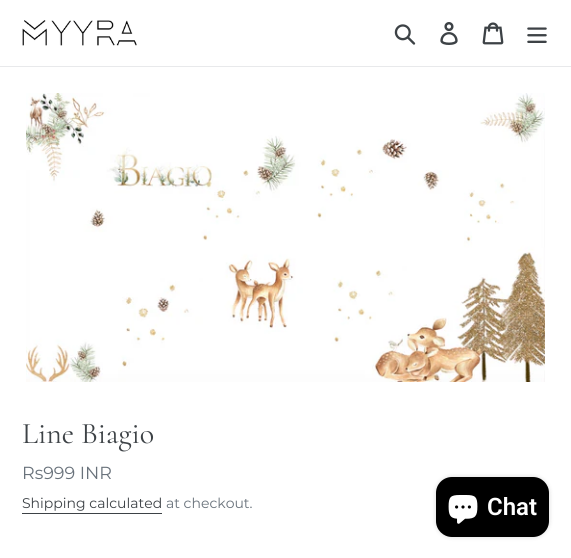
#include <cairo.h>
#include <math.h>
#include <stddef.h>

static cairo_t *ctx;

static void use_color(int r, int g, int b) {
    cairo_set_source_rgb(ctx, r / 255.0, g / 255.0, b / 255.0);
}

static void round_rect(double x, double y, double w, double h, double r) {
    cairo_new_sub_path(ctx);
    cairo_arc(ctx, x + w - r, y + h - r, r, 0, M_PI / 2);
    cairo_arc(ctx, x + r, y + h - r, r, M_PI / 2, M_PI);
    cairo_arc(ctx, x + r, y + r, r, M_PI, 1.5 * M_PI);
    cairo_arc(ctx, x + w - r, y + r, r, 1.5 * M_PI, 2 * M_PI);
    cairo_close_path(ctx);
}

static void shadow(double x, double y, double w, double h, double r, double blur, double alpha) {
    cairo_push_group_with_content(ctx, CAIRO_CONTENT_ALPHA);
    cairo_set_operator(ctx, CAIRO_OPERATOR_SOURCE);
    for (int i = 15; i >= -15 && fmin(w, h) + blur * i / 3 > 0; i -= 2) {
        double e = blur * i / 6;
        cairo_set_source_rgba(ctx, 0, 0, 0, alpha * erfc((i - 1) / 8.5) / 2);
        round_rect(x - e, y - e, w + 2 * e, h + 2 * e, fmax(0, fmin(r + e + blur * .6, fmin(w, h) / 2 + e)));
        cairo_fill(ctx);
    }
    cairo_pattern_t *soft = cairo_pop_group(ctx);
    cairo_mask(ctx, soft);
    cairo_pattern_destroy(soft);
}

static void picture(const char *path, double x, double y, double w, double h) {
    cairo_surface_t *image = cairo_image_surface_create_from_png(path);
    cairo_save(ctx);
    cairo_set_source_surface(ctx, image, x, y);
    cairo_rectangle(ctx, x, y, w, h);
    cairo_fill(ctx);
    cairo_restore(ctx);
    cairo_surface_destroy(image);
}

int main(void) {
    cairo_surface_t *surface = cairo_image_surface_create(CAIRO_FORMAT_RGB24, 571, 558);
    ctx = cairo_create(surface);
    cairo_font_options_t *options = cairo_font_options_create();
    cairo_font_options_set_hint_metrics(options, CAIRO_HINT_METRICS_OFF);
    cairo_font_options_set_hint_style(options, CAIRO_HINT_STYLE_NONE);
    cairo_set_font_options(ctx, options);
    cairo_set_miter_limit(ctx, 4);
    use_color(255, 255, 255);
    cairo_paint(ctx);
    use_color(232, 233, 235);
    cairo_rectangle(ctx, 0, 66, 571, 1);
    cairo_fill(ctx);
    picture("img1.png", 22, 20, 115, 26);
    picture("img2.png", 394, 24, 22, 21);
    picture("img3.png", 440, 22, 18, 23);
    picture("img4.png", 482, 22, 22, 23);
    picture("img5.png", 527, 27, 20, 16);
    picture("img6.png", 26, 93, 519, 289);
    cairo_select_font_face(ctx, "Cormorant", CAIRO_FONT_SLANT_NORMAL, CAIRO_FONT_WEIGHT_NORMAL);
    cairo_set_font_size(ctx, 30);
    use_color(61, 66, 70);
    cairo_move_to(ctx, 22, 443);
    cairo_show_text(ctx, "Line Biagio");
    cairo_select_font_face(ctx, "Montserrat", CAIRO_FONT_SLANT_NORMAL, CAIRO_FONT_WEIGHT_NORMAL);
    cairo_set_font_size(ctx, 17.5);
    use_color(105, 114, 123);
    cairo_move_to(ctx, 22, 479);
    cairo_show_text(ctx, "Rs999 INR");
    cairo_set_font_size(ctx, 14);
    use_color(61, 66, 70);
    cairo_move_to(ctx, 22, 508);
    cairo_show_text(ctx, "Shipping calculated");
    cairo_rectangle(ctx, 22, 513, 140, 1);
    cairo_fill(ctx);
    use_color(105, 114, 123);
    cairo_move_to(ctx, 166, 508);
    cairo_show_text(ctx, "at checkout.");
    use_color(0, 0, 0);
    shadow(436, 477, 113, 60, 16, 2.5, 0.15);
    use_color(0, 0, 0);
    round_rect(436, 477, 113, 60, 16);
    cairo_fill(ctx);
    picture("img7.png", 448, 495, 30, 29);
    cairo_select_font_face(ctx, "Roboto SemiBold", CAIRO_FONT_SLANT_NORMAL, CAIRO_FONT_WEIGHT_NORMAL);
    cairo_set_font_size(ctx, 24);
    use_color(255, 255, 255);
    cairo_move_to(ctx, 487, 515);
    cairo_show_text(ctx, "Chat");
    cairo_surface_write_to_png(surface, "result.png");
    cairo_font_options_destroy(options);
    cairo_destroy(ctx);
    cairo_surface_destroy(surface);
    return 0;
}
